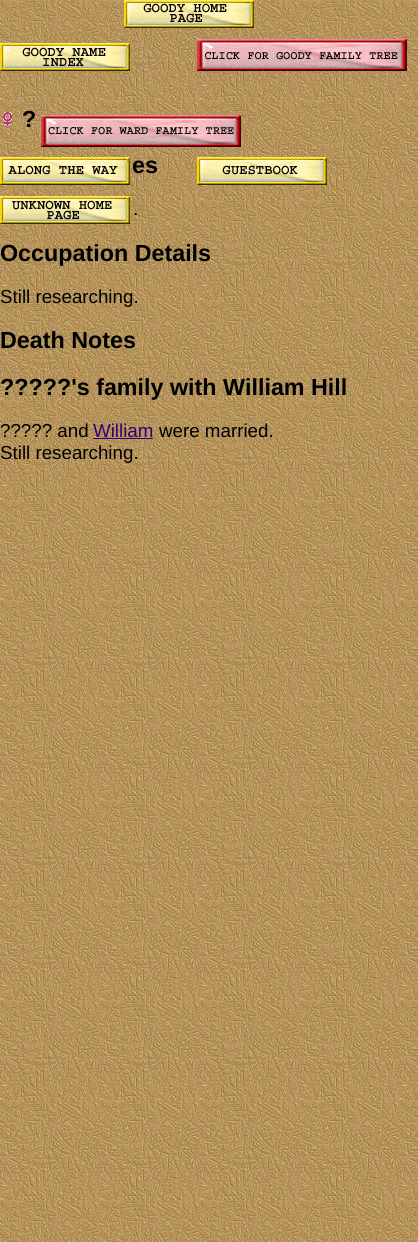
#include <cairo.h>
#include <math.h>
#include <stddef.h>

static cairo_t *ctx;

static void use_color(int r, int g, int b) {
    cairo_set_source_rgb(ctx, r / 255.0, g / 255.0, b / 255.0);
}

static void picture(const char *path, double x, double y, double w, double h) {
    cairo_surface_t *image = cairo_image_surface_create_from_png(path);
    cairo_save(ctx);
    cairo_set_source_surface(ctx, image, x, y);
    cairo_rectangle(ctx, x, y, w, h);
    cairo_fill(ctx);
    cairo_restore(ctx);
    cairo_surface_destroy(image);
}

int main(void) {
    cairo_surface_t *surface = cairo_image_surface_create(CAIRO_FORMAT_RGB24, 418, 1242);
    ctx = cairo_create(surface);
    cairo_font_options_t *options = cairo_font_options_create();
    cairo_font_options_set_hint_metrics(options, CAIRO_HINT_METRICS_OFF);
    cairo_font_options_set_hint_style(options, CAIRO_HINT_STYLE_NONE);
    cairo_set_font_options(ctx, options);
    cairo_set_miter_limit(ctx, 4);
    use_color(255, 255, 255);
    cairo_paint(ctx);
    picture("img1.png", 0, 0, 418, 1242);
    picture("img2.png", 124, 0, 130, 28);
    picture("img3.png", 0, 43, 130, 28);
    picture("img4.png", 197, 39, 210, 32);
    picture("img5.png", 41, 115, 200, 32);
    picture("img6.png", 0, 157, 130, 28);
    picture("img7.png", 197, 157, 130, 28);
    picture("img8.png", 0, 196, 130, 28);
    picture("img9.png", 3, 112, 9, 14);
    cairo_select_font_face(ctx, "Liberation Sans", CAIRO_FONT_SLANT_NORMAL, CAIRO_FONT_WEIGHT_BOLD);
    cairo_set_font_size(ctx, 23.3);
    use_color(0, 0, 0);
    cairo_move_to(ctx, 22, 127);
    cairo_show_text(ctx, "?");
    cairo_move_to(ctx, 132, 173);
    cairo_show_text(ctx, "es");
    cairo_select_font_face(ctx, "Liberation Sans", CAIRO_FONT_SLANT_NORMAL, CAIRO_FONT_WEIGHT_NORMAL);
    cairo_set_font_size(ctx, 18.75);
    cairo_move_to(ctx, 133, 215);
    cairo_show_text(ctx, ".");
    cairo_select_font_face(ctx, "Liberation Sans", CAIRO_FONT_SLANT_NORMAL, CAIRO_FONT_WEIGHT_BOLD);
    cairo_set_font_size(ctx, 23.3);
    cairo_move_to(ctx, 0, 261);
    cairo_show_text(ctx, "Occupation Details");
    cairo_select_font_face(ctx, "Liberation Sans", CAIRO_FONT_SLANT_NORMAL, CAIRO_FONT_WEIGHT_NORMAL);
    cairo_set_font_size(ctx, 18.75);
    cairo_move_to(ctx, 0, 303);
    cairo_show_text(ctx, "Still researching.");
    cairo_select_font_face(ctx, "Liberation Sans", CAIRO_FONT_SLANT_NORMAL, CAIRO_FONT_WEIGHT_BOLD);
    cairo_set_font_size(ctx, 23.3);
    cairo_move_to(ctx, 0, 348);
    cairo_show_text(ctx, "Death Notes");
    cairo_move_to(ctx, 0, 395);
    cairo_show_text(ctx, "?\077?\077?'s family with William Hill");
    cairo_select_font_face(ctx, "Liberation Sans", CAIRO_FONT_SLANT_NORMAL, CAIRO_FONT_WEIGHT_NORMAL);
    cairo_set_font_size(ctx, 18.75);
    cairo_move_to(ctx, 0, 437);
    cairo_show_text(ctx, "?\077?\077? and");
    use_color(51, 0, 119);
    cairo_move_to(ctx, 93, 437);
    cairo_show_text(ctx, "William");
    cairo_rectangle(ctx, 93, 438, 60, 1);
    cairo_fill(ctx);
    use_color(0, 0, 0);
    cairo_move_to(ctx, 159, 437);
    cairo_show_text(ctx, "were married.");
    cairo_move_to(ctx, 0, 459);
    cairo_show_text(ctx, "Still researching.");
    cairo_surface_write_to_png(surface, "result.png");
    cairo_font_options_destroy(options);
    cairo_destroy(ctx);
    cairo_surface_destroy(surface);
    return 0;
}
